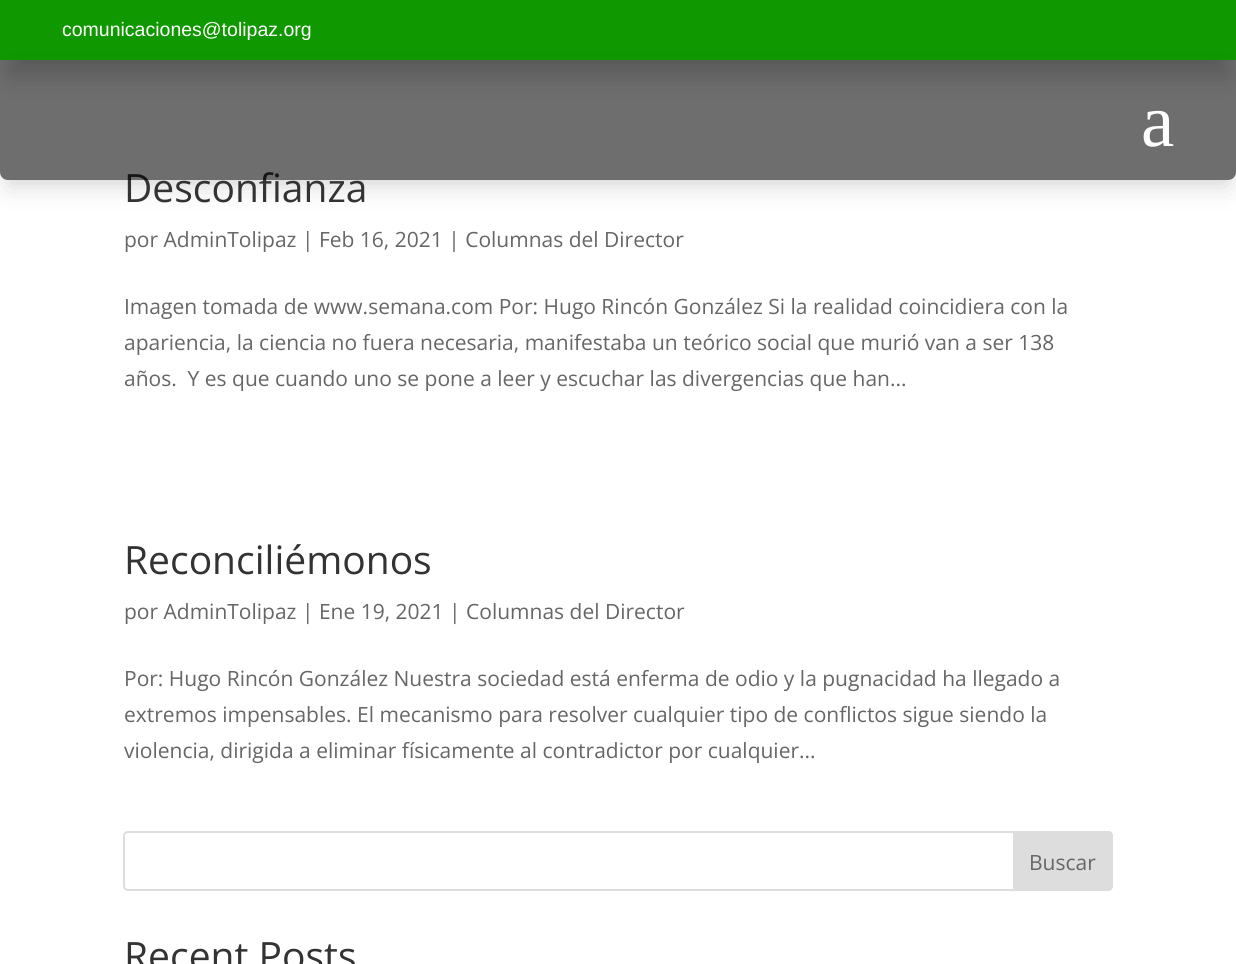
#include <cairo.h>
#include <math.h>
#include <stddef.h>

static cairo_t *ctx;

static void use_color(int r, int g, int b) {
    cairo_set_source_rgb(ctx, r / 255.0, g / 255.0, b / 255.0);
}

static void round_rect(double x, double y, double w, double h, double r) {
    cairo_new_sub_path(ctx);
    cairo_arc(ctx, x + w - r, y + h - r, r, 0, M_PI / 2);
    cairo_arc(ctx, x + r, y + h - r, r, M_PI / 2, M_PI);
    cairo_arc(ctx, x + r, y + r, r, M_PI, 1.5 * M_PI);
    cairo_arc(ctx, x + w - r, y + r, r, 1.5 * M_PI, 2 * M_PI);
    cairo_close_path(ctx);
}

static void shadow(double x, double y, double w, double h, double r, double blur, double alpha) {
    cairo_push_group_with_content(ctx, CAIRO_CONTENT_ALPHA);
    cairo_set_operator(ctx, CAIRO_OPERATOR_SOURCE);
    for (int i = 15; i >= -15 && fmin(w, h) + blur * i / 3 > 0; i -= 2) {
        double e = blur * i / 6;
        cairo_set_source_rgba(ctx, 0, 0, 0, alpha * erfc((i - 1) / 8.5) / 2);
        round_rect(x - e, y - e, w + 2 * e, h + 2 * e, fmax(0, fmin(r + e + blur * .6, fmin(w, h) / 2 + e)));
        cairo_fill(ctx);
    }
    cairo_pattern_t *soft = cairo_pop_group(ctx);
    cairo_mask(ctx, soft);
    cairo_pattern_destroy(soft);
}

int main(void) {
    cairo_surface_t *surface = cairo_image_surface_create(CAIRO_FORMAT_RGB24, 1236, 964);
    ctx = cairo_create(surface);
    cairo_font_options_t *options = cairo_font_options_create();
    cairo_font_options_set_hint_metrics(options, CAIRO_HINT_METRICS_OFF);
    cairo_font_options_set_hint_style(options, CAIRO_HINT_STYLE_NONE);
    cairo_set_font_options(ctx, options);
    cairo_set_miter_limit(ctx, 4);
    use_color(255, 255, 255);
    cairo_paint(ctx);
    use_color(0, 0, 0);
    shadow(9, 33, 1218, 42, 0, 13.5, 0.2);
    use_color(16, 152, 0);
    cairo_rectangle(ctx, 0, 0, 1236, 60);
    cairo_fill(ctx);
    cairo_select_font_face(ctx, "Liberation Sans", CAIRO_FONT_SLANT_NORMAL, CAIRO_FONT_WEIGHT_NORMAL);
    cairo_set_font_size(ctx, 19.5);
    use_color(255, 255, 255);
    cairo_move_to(ctx, 62, 36);
    cairo_show_text(ctx, "comunicaciones@tolipaz.org");
    cairo_save(ctx);
    cairo_set_fill_rule(ctx, CAIRO_FILL_RULE_EVEN_ODD);
    cairo_new_path(ctx);
    cairo_move_to(ctx, 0, 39);
    cairo_line_to(ctx, 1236, 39);
    cairo_line_to(ctx, 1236, 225);
    cairo_line_to(ctx, 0, 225);
    cairo_close_path(ctx);
    cairo_move_to(ctx, 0, 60);
    cairo_line_to(ctx, 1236, 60);
    cairo_line_to(ctx, 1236, 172);
    cairo_curve_to(ctx, 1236, 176.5, 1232.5, 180, 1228, 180);
    cairo_line_to(ctx, 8, 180);
    cairo_curve_to(ctx, 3.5, 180, 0, 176.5, 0, 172);
    cairo_close_path(ctx);
    cairo_clip(ctx);
    use_color(0, 0, 0);
    shadow(9, 81, 1218, 102, 0, 13.5, 0.2);
    cairo_restore(ctx);
    cairo_select_font_face(ctx, "Open Sans", CAIRO_FONT_SLANT_NORMAL, CAIRO_FONT_WEIGHT_NORMAL);
    cairo_set_font_size(ctx, 39);
    use_color(51, 51, 51);
    cairo_move_to(ctx, 124, 202);
    cairo_show_text(ctx, "Desconfianza");
    cairo_set_source_rgba(ctx, 0.008, 0, 0, 0.57);
    cairo_new_path(ctx);
    cairo_move_to(ctx, 0, 60);
    cairo_line_to(ctx, 1236, 60);
    cairo_line_to(ctx, 1236, 172);
    cairo_curve_to(ctx, 1236, 176.5, 1232.5, 180, 1228, 180);
    cairo_line_to(ctx, 8, 180);
    cairo_curve_to(ctx, 3.5, 180, 0, 176.5, 0, 172);
    cairo_close_path(ctx);
    cairo_fill(ctx);
    cairo_select_font_face(ctx, "Liberation Serif", CAIRO_FONT_SLANT_NORMAL, CAIRO_FONT_WEIGHT_NORMAL);
    cairo_set_font_size(ctx, 75);
    use_color(255, 255, 255);
    cairo_move_to(ctx, 1141, 146);
    cairo_show_text(ctx, "a");
    cairo_select_font_face(ctx, "Open Sans", CAIRO_FONT_SLANT_NORMAL, CAIRO_FONT_WEIGHT_NORMAL);
    cairo_set_font_size(ctx, 21);
    use_color(102, 102, 102);
    cairo_move_to(ctx, 124, 247);
    cairo_show_text(ctx, "por AdminTolipaz | Feb 16, 2021 | Columnas del Director");
    cairo_move_to(ctx, 124, 314);
    cairo_show_text(ctx, "Imagen tomada de www.semana.com Por: Hugo Rincón González Si la realidad coincidiera con la");
    cairo_move_to(ctx, 124, 350);
    cairo_show_text(ctx, "apariencia, la ciencia no fuera necesaria, manifestaba un teórico social que murió van a ser 138");
    cairo_move_to(ctx, 124, 386);
    cairo_show_text(ctx, "años.  Y es que cuando uno se pone a leer y escuchar las divergencias que han...");
    cairo_set_font_size(ctx, 39);
    use_color(51, 51, 51);
    cairo_move_to(ctx, 124, 574);
    cairo_show_text(ctx, "Reconciliémonos");
    cairo_set_font_size(ctx, 21);
    use_color(102, 102, 102);
    cairo_move_to(ctx, 124, 619);
    cairo_show_text(ctx, "por AdminTolipaz | Ene 19, 2021 | Columnas del Director");
    cairo_move_to(ctx, 124, 686);
    cairo_show_text(ctx, "Por: Hugo Rincón González Nuestra sociedad está enferma de odio y la pugnacidad ha llegado a");
    cairo_move_to(ctx, 124, 722);
    cairo_show_text(ctx, "extremos impensables. El mecanismo para resolver cualquier tipo de conflictos sigue siendo la");
    cairo_move_to(ctx, 124, 758);
    cairo_show_text(ctx, "violencia, dirigida a eliminar físicamente al contradictor por cualquier...");
    round_rect(124, 832, 988, 58, 4);
    use_color(221, 221, 221);
    cairo_stroke(ctx);
    cairo_new_path(ctx);
    cairo_move_to(ctx, 1014, 832);
    cairo_line_to(ctx, 1108, 832);
    cairo_curve_to(ctx, 1110, 832, 1112, 834, 1112, 836);
    cairo_line_to(ctx, 1112, 886);
    cairo_curve_to(ctx, 1112, 888, 1110, 890, 1108, 890);
    cairo_line_to(ctx, 1014, 890);
    cairo_close_path(ctx);
    cairo_fill_preserve(ctx);
    cairo_stroke(ctx);
    use_color(102, 102, 102);
    cairo_move_to(ctx, 1029, 870);
    cairo_show_text(ctx, "Buscar");
    cairo_set_font_size(ctx, 39);
    use_color(51, 51, 51);
    cairo_move_to(ctx, 124, 970);
    cairo_show_text(ctx, "Recent Posts");
    cairo_surface_write_to_png(surface, "result.png");
    cairo_font_options_destroy(options);
    cairo_destroy(ctx);
    cairo_surface_destroy(surface);
    return 0;
}
